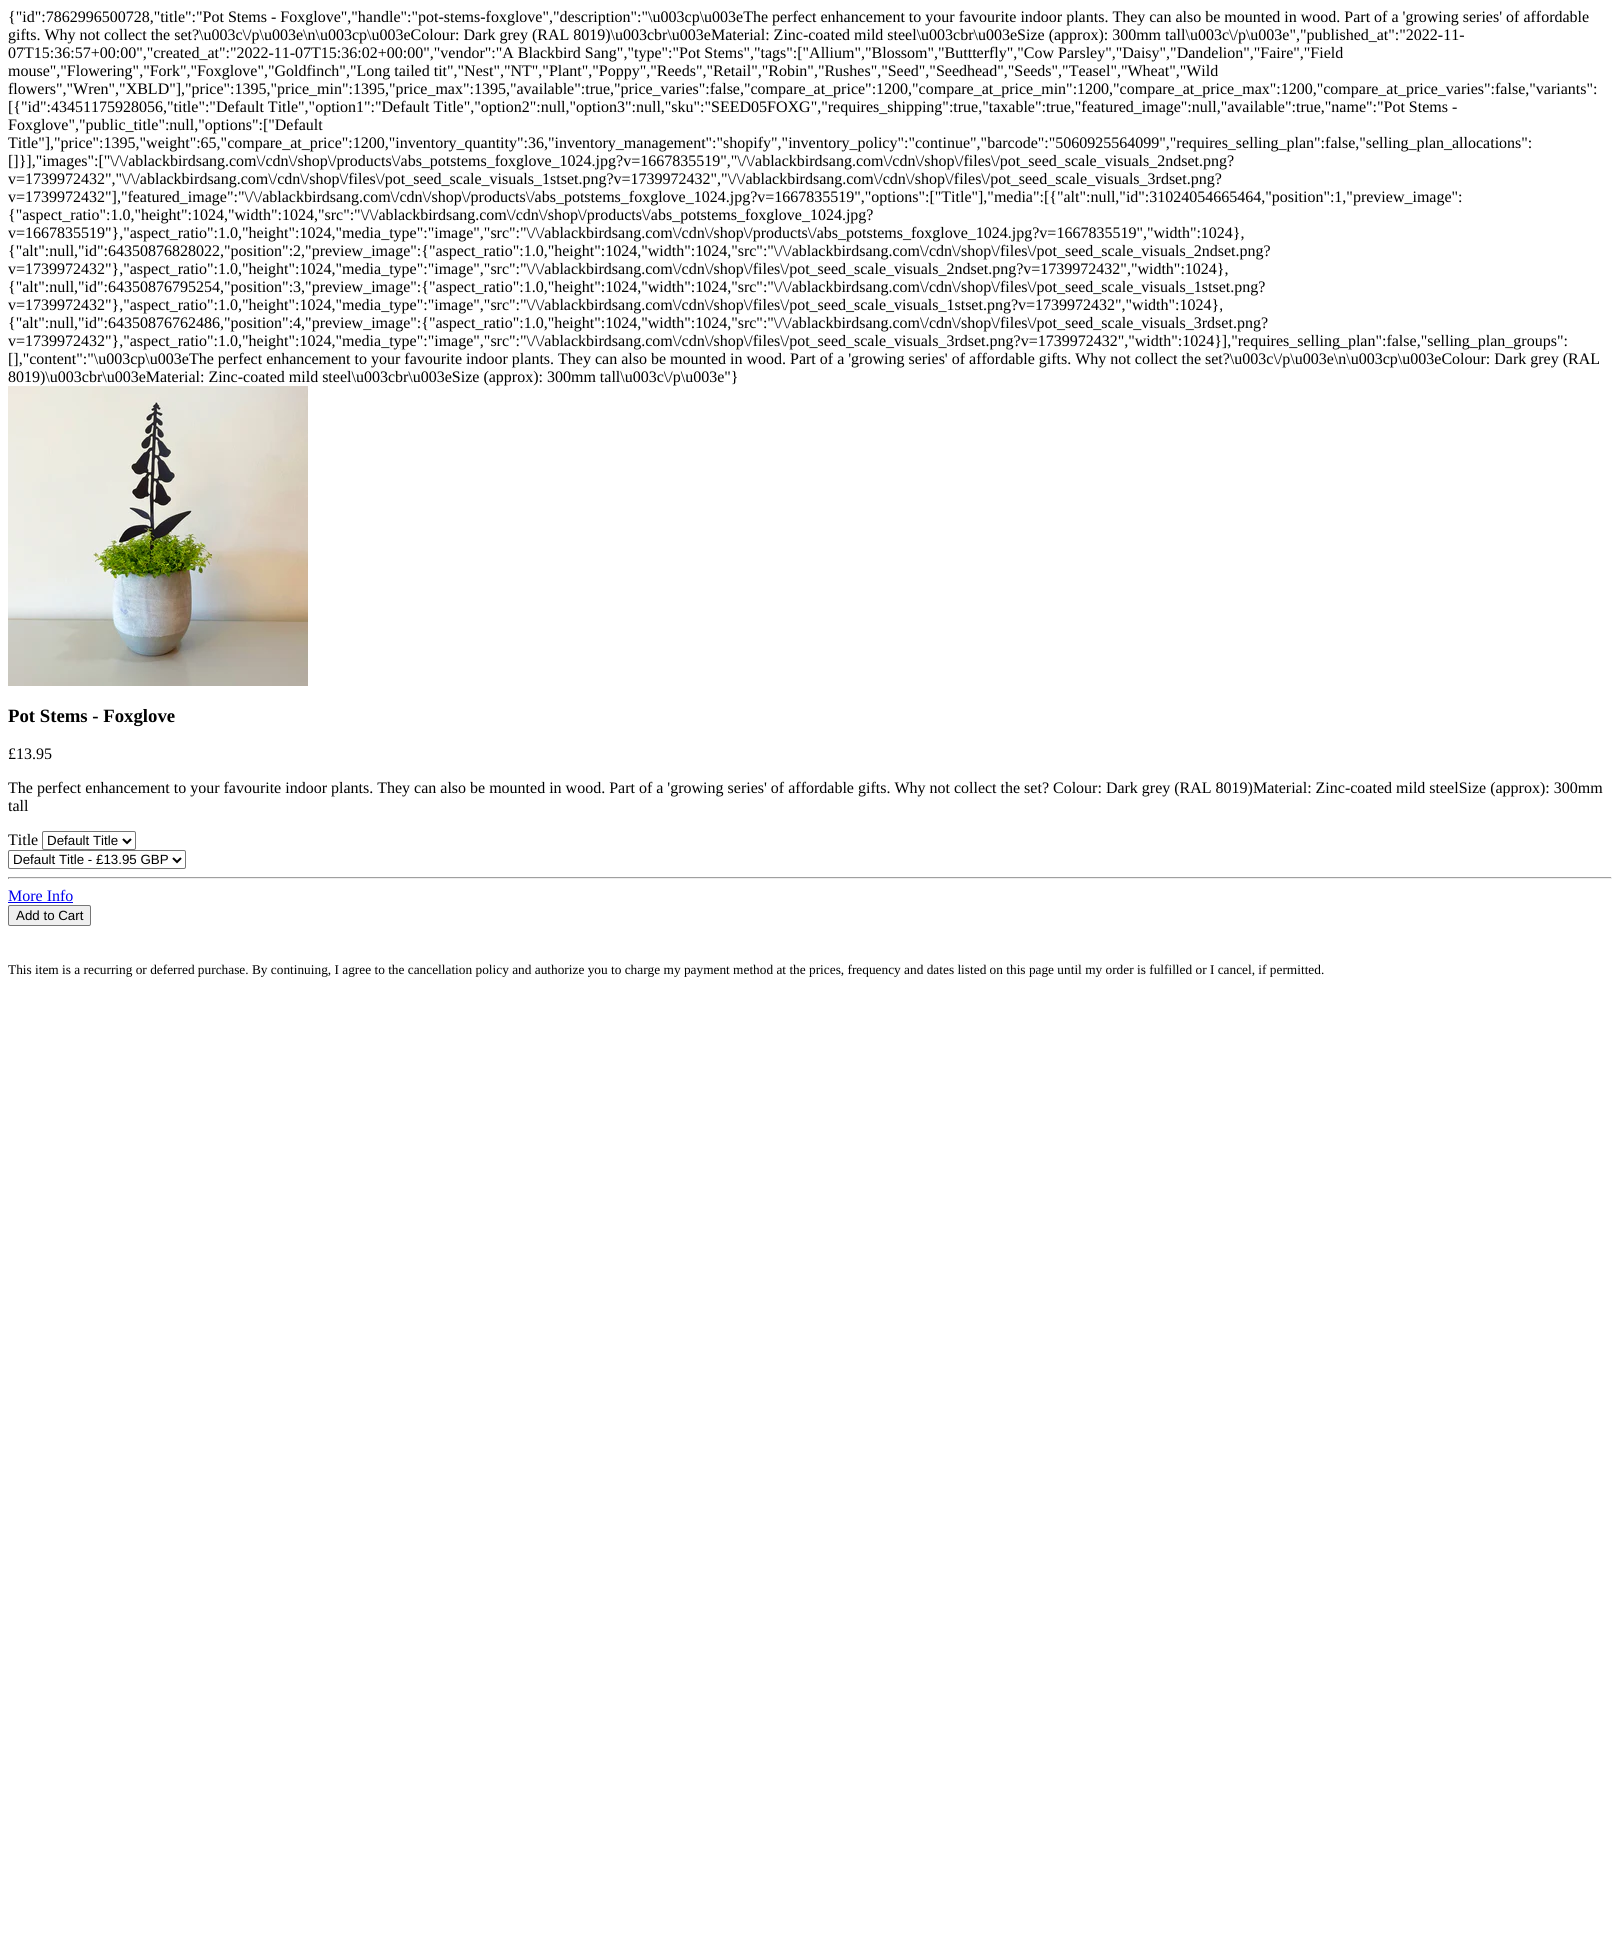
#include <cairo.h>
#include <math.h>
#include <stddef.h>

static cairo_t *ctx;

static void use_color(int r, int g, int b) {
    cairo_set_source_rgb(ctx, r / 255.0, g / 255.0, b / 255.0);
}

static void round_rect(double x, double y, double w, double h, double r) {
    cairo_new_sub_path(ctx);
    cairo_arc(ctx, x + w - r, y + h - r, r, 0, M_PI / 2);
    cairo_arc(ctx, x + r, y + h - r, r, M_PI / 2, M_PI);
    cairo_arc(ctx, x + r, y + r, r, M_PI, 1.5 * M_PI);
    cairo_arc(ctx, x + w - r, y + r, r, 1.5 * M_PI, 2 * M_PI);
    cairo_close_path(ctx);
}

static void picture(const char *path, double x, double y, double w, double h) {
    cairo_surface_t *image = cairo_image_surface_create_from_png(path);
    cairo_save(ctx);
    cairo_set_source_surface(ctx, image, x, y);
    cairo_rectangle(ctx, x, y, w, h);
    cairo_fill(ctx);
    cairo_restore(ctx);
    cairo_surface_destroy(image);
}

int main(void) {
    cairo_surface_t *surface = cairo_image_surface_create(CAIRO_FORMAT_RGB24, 1620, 1943);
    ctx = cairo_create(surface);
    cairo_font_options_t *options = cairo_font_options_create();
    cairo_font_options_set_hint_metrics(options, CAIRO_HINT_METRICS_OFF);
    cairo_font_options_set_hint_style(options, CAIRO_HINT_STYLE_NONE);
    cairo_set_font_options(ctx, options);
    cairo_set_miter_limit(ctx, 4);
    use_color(255, 255, 255);
    cairo_paint(ctx);
    cairo_select_font_face(ctx, "Liberation Serif", CAIRO_FONT_SLANT_NORMAL, CAIRO_FONT_WEIGHT_NORMAL);
    cairo_set_font_size(ctx, 16);
    use_color(0, 0, 0);
    cairo_move_to(ctx, 8, 22);
    cairo_show_text(ctx, "{\"id\":7862996500728,\"title\":\"Pot Stems - Foxglove\",\"handle\":\"pot-stems-foxglove\",\"description\":\"\\u003cp\\u003eThe perfect enhancement to your favourite indoor plants. They can also be mounted in wood. Part of a 'growing series' of affordable");
    cairo_move_to(ctx, 8, 40);
    cairo_show_text(ctx, "gifts. Why not collect the set?\\u003c\\/p\\u003e\\n\\u003cp\\u003eColour: Dark grey (RAL 8019)\\u003cbr\\u003eMaterial: Zinc-coated mild steel\\u003cbr\\u003eSize (approx): 300mm tall\\u003c\\/p\\u003e\",\"published_at\":\"2022-11-");
    cairo_move_to(ctx, 8, 58);
    cairo_show_text(ctx, "07T15:36:57+00:00\",\"created_at\":\"2022-11-07T15:36:02+00:00\",\"vendor\":\"A Blackbird Sang\",\"type\":\"Pot Stems\",\"tags\":[\"Allium\",\"Blossom\",\"Buttterfly\",\"Cow Parsley\",\"Daisy\",\"Dandelion\",\"Faire\",\"Field");
    cairo_move_to(ctx, 8, 76);
    cairo_show_text(ctx, "mouse\",\"Flowering\",\"Fork\",\"Foxglove\",\"Goldfinch\",\"Long tailed tit\",\"Nest\",\"NT\",\"Plant\",\"Poppy\",\"Reeds\",\"Retail\",\"Robin\",\"Rushes\",\"Seed\",\"Seedhead\",\"Seeds\",\"Teasel\",\"Wheat\",\"Wild");
    cairo_move_to(ctx, 8, 94);
    cairo_show_text(ctx, "flowers\",\"Wren\",\"XBLD\"],\"price\":1395,\"price_min\":1395,\"price_max\":1395,\"available\":true,\"price_varies\":false,\"compare_at_price\":1200,\"compare_at_price_min\":1200,\"compare_at_price_max\":1200,\"compare_at_price_varies\":false,\"variants\":");
    cairo_move_to(ctx, 8, 112);
    cairo_show_text(ctx, "[{\"id\":43451175928056,\"title\":\"Default Title\",\"option1\":\"Default Title\",\"option2\":null,\"option3\":null,\"sku\":\"SEED05FOXG\",\"requires_shipping\":true,\"taxable\":true,\"featured_image\":null,\"available\":true,\"name\":\"Pot Stems -");
    cairo_move_to(ctx, 8, 130);
    cairo_show_text(ctx, "Foxglove\",\"public_title\":null,\"options\":[\"Default");
    cairo_move_to(ctx, 8, 148);
    cairo_show_text(ctx, "Title\"],\"price\":1395,\"weight\":65,\"compare_at_price\":1200,\"inventory_quantity\":36,\"inventory_management\":\"shopify\",\"inventory_policy\":\"continue\",\"barcode\":\"5060925564099\",\"requires_selling_plan\":false,\"selling_plan_allocations\":");
    cairo_move_to(ctx, 8, 166);
    cairo_show_text(ctx, "[]}],\"images\":[\"\\/\\/ablackbirdsang.com\\/cdn\\/shop\\/products\\/abs_potstems_foxglove_1024.jpg?v=1667835519\",\"\\/\\/ablackbirdsang.com\\/cdn\\/shop\\/files\\/pot_seed_scale_visuals_2ndset.png?");
    cairo_move_to(ctx, 8, 184);
    cairo_show_text(ctx, "v=1739972432\",\"\\/\\/ablackbirdsang.com\\/cdn\\/shop\\/files\\/pot_seed_scale_visuals_1stset.png?v=1739972432\",\"\\/\\/ablackbirdsang.com\\/cdn\\/shop\\/files\\/pot_seed_scale_visuals_3rdset.png?");
    cairo_move_to(ctx, 8, 202);
    cairo_show_text(ctx, "v=1739972432\"],\"featured_image\":\"\\/\\/ablackbirdsang.com\\/cdn\\/shop\\/products\\/abs_potstems_foxglove_1024.jpg?v=1667835519\",\"options\":[\"Title\"],\"media\":[{\"alt\":null,\"id\":31024054665464,\"position\":1,\"preview_image\":");
    cairo_move_to(ctx, 8, 220);
    cairo_show_text(ctx, "{\"aspect_ratio\":1.0,\"height\":1024,\"width\":1024,\"src\":\"\\/\\/ablackbirdsang.com\\/cdn\\/shop\\/products\\/abs_potstems_foxglove_1024.jpg?");
    cairo_move_to(ctx, 8, 238);
    cairo_show_text(ctx, "v=1667835519\"},\"aspect_ratio\":1.0,\"height\":1024,\"media_type\":\"image\",\"src\":\"\\/\\/ablackbirdsang.com\\/cdn\\/shop\\/products\\/abs_potstems_foxglove_1024.jpg?v=1667835519\",\"width\":1024},");
    cairo_move_to(ctx, 8, 256);
    cairo_show_text(ctx, "{\"alt\":null,\"id\":64350876828022,\"position\":2,\"preview_image\":{\"aspect_ratio\":1.0,\"height\":1024,\"width\":1024,\"src\":\"\\/\\/ablackbirdsang.com\\/cdn\\/shop\\/files\\/pot_seed_scale_visuals_2ndset.png?");
    cairo_move_to(ctx, 8, 274);
    cairo_show_text(ctx, "v=1739972432\"},\"aspect_ratio\":1.0,\"height\":1024,\"media_type\":\"image\",\"src\":\"\\/\\/ablackbirdsang.com\\/cdn\\/shop\\/files\\/pot_seed_scale_visuals_2ndset.png?v=1739972432\",\"width\":1024},");
    cairo_move_to(ctx, 8, 292);
    cairo_show_text(ctx, "{\"alt\":null,\"id\":64350876795254,\"position\":3,\"preview_image\":{\"aspect_ratio\":1.0,\"height\":1024,\"width\":1024,\"src\":\"\\/\\/ablackbirdsang.com\\/cdn\\/shop\\/files\\/pot_seed_scale_visuals_1stset.png?");
    cairo_move_to(ctx, 8, 310);
    cairo_show_text(ctx, "v=1739972432\"},\"aspect_ratio\":1.0,\"height\":1024,\"media_type\":\"image\",\"src\":\"\\/\\/ablackbirdsang.com\\/cdn\\/shop\\/files\\/pot_seed_scale_visuals_1stset.png?v=1739972432\",\"width\":1024},");
    cairo_move_to(ctx, 8, 328);
    cairo_show_text(ctx, "{\"alt\":null,\"id\":64350876762486,\"position\":4,\"preview_image\":{\"aspect_ratio\":1.0,\"height\":1024,\"width\":1024,\"src\":\"\\/\\/ablackbirdsang.com\\/cdn\\/shop\\/files\\/pot_seed_scale_visuals_3rdset.png?");
    cairo_move_to(ctx, 8, 346);
    cairo_show_text(ctx, "v=1739972432\"},\"aspect_ratio\":1.0,\"height\":1024,\"media_type\":\"image\",\"src\":\"\\/\\/ablackbirdsang.com\\/cdn\\/shop\\/files\\/pot_seed_scale_visuals_3rdset.png?v=1739972432\",\"width\":1024}],\"requires_selling_plan\":false,\"selling_plan_groups\":");
    cairo_move_to(ctx, 8, 364);
    cairo_show_text(ctx, "[],\"content\":\"\\u003cp\\u003eThe perfect enhancement to your favourite indoor plants. They can also be mounted in wood. Part of a 'growing series' of affordable gifts. Why not collect the set?\\u003c\\/p\\u003e\\n\\u003cp\\u003eColour: Dark grey (RAL");
    cairo_move_to(ctx, 8, 382);
    cairo_show_text(ctx, "8019)\\u003cbr\\u003eMaterial: Zinc-coated mild steel\\u003cbr\\u003eSize (approx): 300mm tall\\u003c\\/p\\u003e\"}");
    picture("img1.png", 8, 386, 300, 300);
    cairo_select_font_face(ctx, "Liberation Serif", CAIRO_FONT_SLANT_NORMAL, CAIRO_FONT_WEIGHT_BOLD);
    cairo_set_font_size(ctx, 18.75);
    cairo_move_to(ctx, 8, 722);
    cairo_show_text(ctx, "Pot Stems - Foxglove");
    cairo_select_font_face(ctx, "Liberation Serif", CAIRO_FONT_SLANT_NORMAL, CAIRO_FONT_WEIGHT_NORMAL);
    cairo_set_font_size(ctx, 16);
    cairo_move_to(ctx, 8, 759);
    cairo_show_text(ctx, "£13.95");
    cairo_move_to(ctx, 8, 793);
    cairo_show_text(ctx, "The perfect enhancement to your favourite indoor plants. They can also be mounted in wood. Part of a 'growing series' of affordable gifts. Why not collect the set? Colour: Dark grey (RAL 8019)Material: Zinc-coated mild steelSize (approx): 300mm");
    cairo_move_to(ctx, 8, 811);
    cairo_show_text(ctx, "tall");
    cairo_move_to(ctx, 8, 845);
    cairo_show_text(ctx, "Title");
    round_rect(42.5, 831.5, 93, 18, 1.5);
    use_color(118, 118, 118);
    cairo_set_line_width(ctx, 1);
    cairo_stroke(ctx);
    cairo_new_path(ctx);
    cairo_move_to(ctx, 123, 839);
    cairo_line_to(ctx, 127, 843);
    cairo_line_to(ctx, 131, 839);
    use_color(0, 0, 0);
    cairo_set_line_width(ctx, 2);
    cairo_stroke(ctx);
    cairo_select_font_face(ctx, "Liberation Sans", CAIRO_FONT_SLANT_NORMAL, CAIRO_FONT_WEIGHT_NORMAL);
    cairo_set_font_size(ctx, 13.33);
    cairo_move_to(ctx, 47, 845);
    cairo_show_text(ctx, "Default Title");
    round_rect(8.5, 850.5, 177, 18, 1.5);
    use_color(118, 118, 118);
    cairo_set_line_width(ctx, 1);
    cairo_stroke(ctx);
    cairo_new_path(ctx);
    cairo_move_to(ctx, 173, 858);
    cairo_line_to(ctx, 177, 862);
    cairo_line_to(ctx, 181, 858);
    use_color(0, 0, 0);
    cairo_set_line_width(ctx, 2);
    cairo_stroke(ctx);
    cairo_move_to(ctx, 13, 864);
    cairo_show_text(ctx, "Default Title - £13.95 GBP");
    use_color(159, 159, 159);
    cairo_rectangle(ctx, 8, 877, 1604, 1);
    cairo_fill(ctx);
    use_color(238, 238, 238);
    cairo_rectangle(ctx, 1611, 877, 1, 2);
    cairo_fill(ctx);
    cairo_rectangle(ctx, 8, 878, 1604, 1);
    cairo_fill(ctx);
    use_color(159, 159, 159);
    cairo_rectangle(ctx, 8, 877, 1, 2);
    cairo_fill(ctx);
    cairo_select_font_face(ctx, "Liberation Serif", CAIRO_FONT_SLANT_NORMAL, CAIRO_FONT_WEIGHT_NORMAL);
    cairo_set_font_size(ctx, 16);
    use_color(0, 0, 238);
    cairo_move_to(ctx, 8, 901);
    cairo_show_text(ctx, "More Info");
    cairo_rectangle(ctx, 8, 902, 65, 1);
    cairo_fill(ctx);
    use_color(239, 239, 239);
    round_rect(8.5, 905.5, 82, 20, 1.5);
    cairo_fill_preserve(ctx);
    use_color(118, 118, 118);
    cairo_set_line_width(ctx, 1);
    cairo_stroke(ctx);
    cairo_select_font_face(ctx, "Liberation Sans", CAIRO_FONT_SLANT_NORMAL, CAIRO_FONT_WEIGHT_NORMAL);
    cairo_set_font_size(ctx, 13.33);
    use_color(0, 0, 0);
    cairo_move_to(ctx, 16, 920);
    cairo_show_text(ctx, "Add to Cart");
    cairo_select_font_face(ctx, "Liberation Serif", CAIRO_FONT_SLANT_NORMAL, CAIRO_FONT_WEIGHT_NORMAL);
    cairo_move_to(ctx, 8, 974);
    cairo_show_text(ctx, "This item is a recurring or deferred purchase. By continuing, I agree to the cancellation policy and authorize you to charge my payment method at the prices, frequency and dates listed on this page until my order is fulfilled or I cancel, if permitted.");
    cairo_surface_write_to_png(surface, "result.png");
    cairo_font_options_destroy(options);
    cairo_destroy(ctx);
    cairo_surface_destroy(surface);
    return 0;
}
